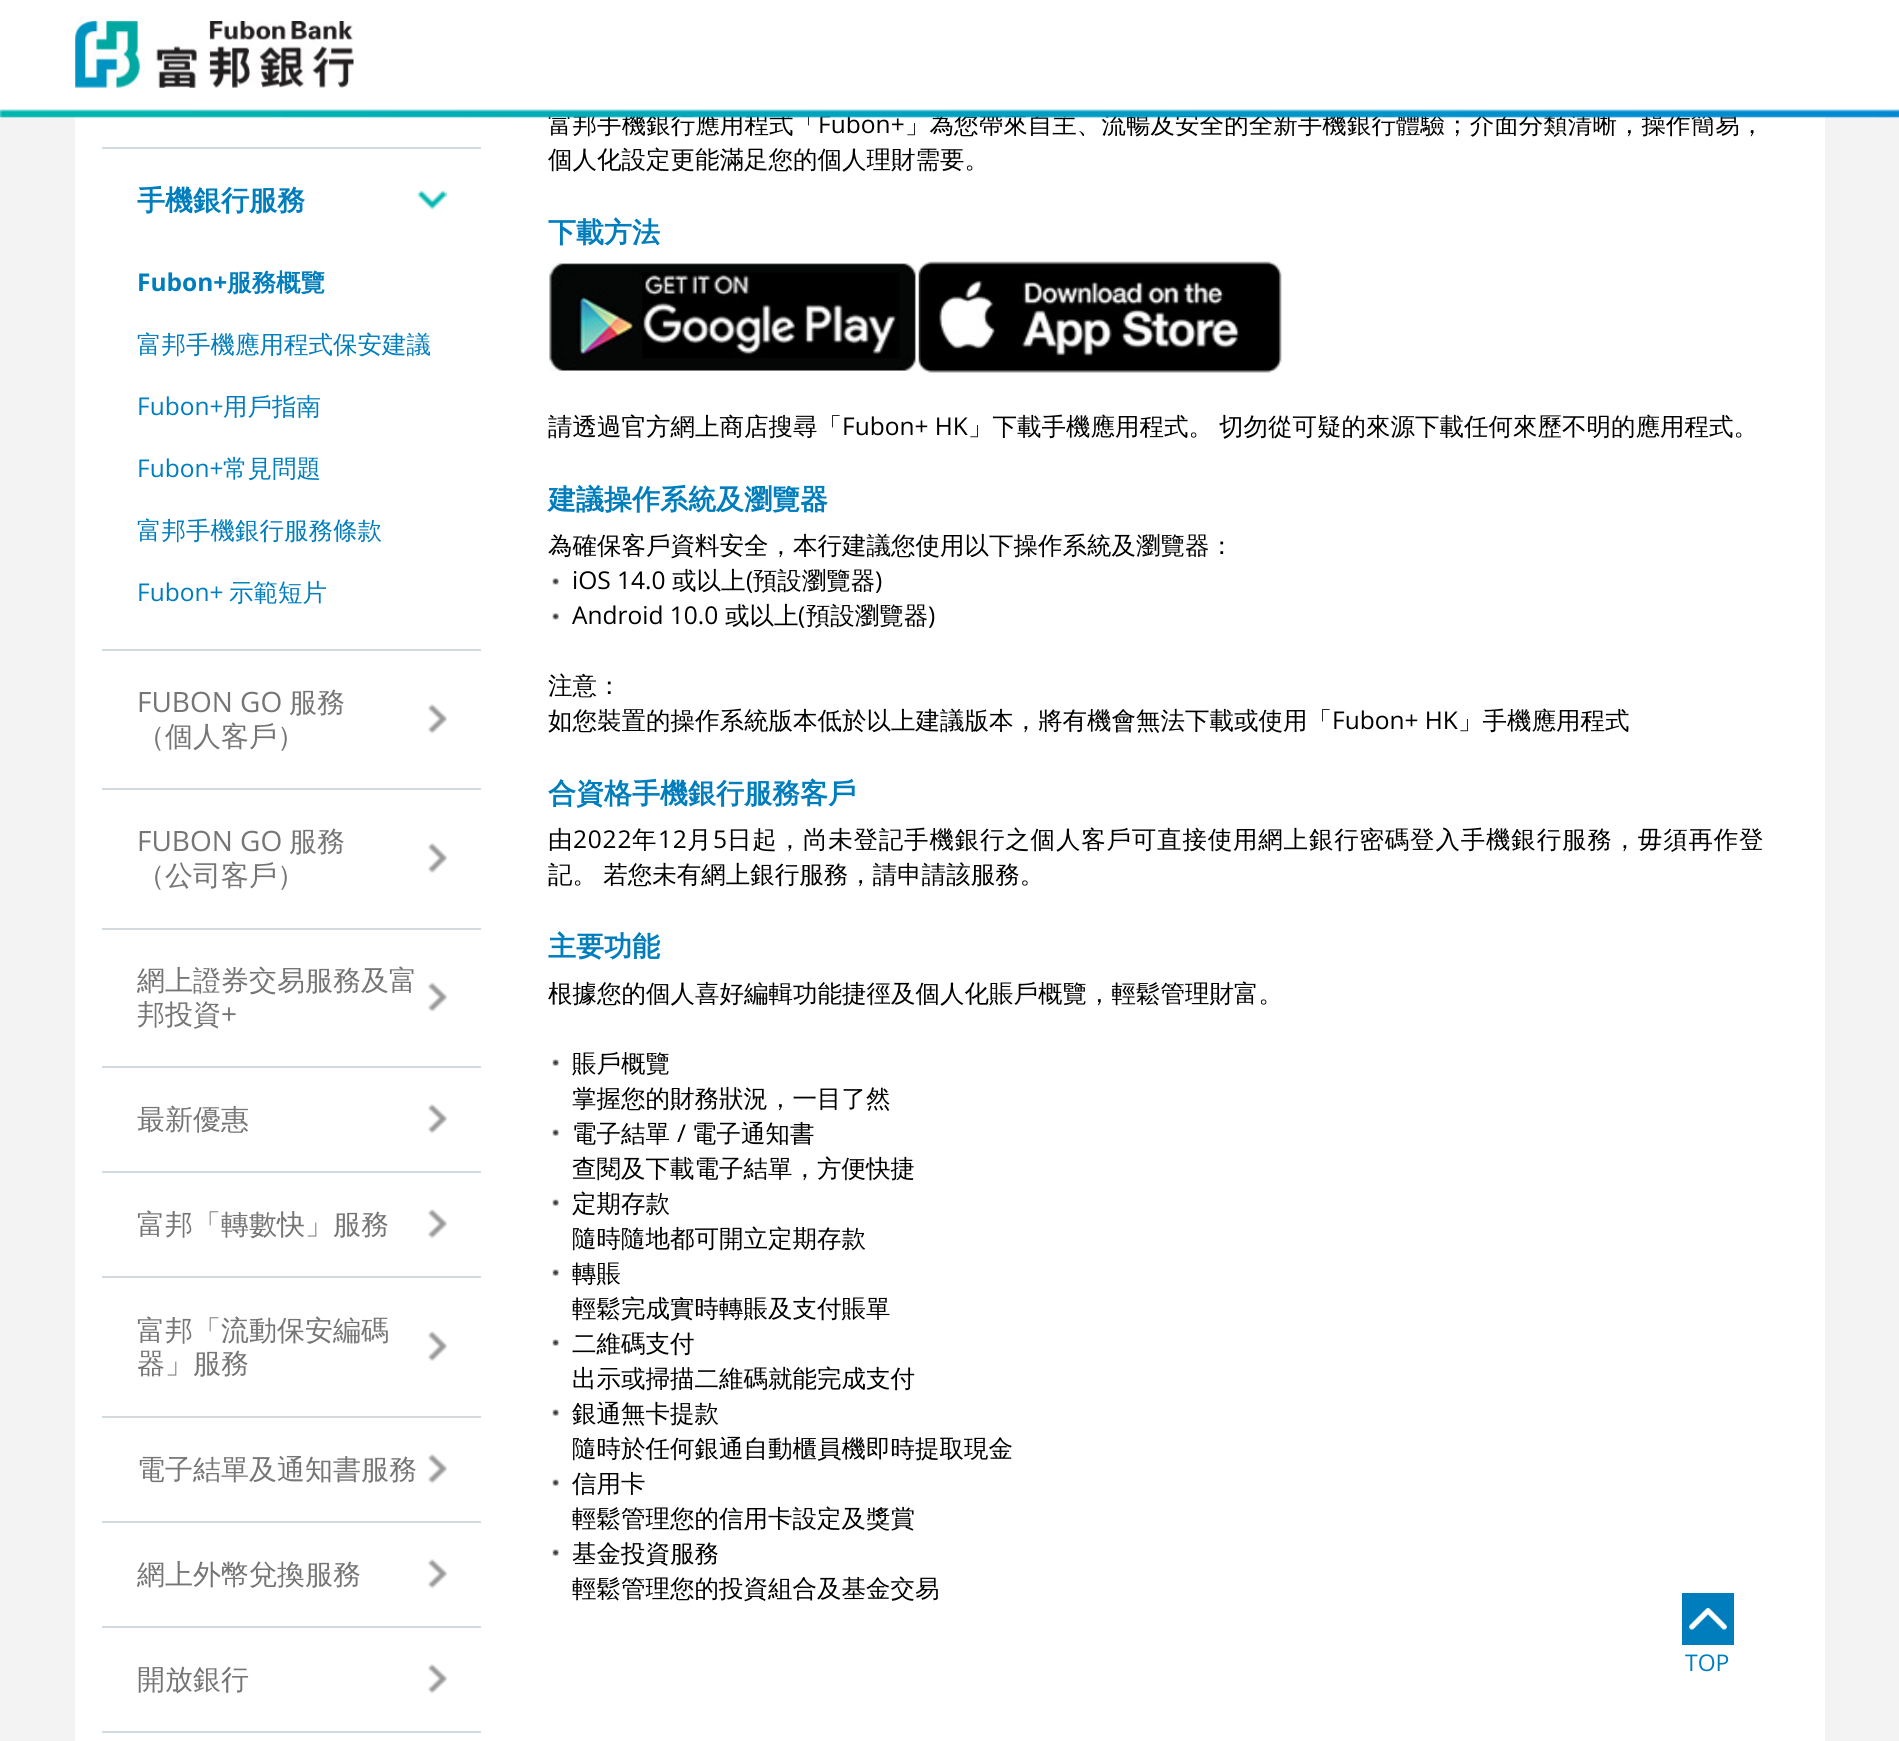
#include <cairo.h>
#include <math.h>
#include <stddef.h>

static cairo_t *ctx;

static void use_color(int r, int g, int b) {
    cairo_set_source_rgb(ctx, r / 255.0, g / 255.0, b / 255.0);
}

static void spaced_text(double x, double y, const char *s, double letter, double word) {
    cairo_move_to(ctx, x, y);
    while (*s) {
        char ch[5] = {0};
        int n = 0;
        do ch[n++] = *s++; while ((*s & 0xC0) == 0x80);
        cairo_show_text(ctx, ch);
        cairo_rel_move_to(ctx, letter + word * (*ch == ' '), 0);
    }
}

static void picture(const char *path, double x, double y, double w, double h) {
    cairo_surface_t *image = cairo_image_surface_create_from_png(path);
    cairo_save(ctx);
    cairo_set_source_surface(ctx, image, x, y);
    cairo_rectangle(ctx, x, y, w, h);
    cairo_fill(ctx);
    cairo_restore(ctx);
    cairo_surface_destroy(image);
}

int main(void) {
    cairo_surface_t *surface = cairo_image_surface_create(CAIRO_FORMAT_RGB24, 1899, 1741);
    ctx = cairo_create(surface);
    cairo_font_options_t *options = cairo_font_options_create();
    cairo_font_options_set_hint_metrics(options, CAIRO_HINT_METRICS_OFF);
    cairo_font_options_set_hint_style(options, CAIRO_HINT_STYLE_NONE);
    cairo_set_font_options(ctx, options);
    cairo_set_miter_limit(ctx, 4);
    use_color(243, 243, 243);
    cairo_paint(ctx);
    use_color(255, 255, 255);
    cairo_rectangle(ctx, 0, 0, 1899, 112);
    cairo_fill(ctx);
    cairo_rectangle(ctx, 75, 116, 1750, 1625);
    cairo_fill(ctx);
    cairo_select_font_face(ctx, "WenQuanYi Zen Hei Medium", CAIRO_FONT_SLANT_NORMAL, CAIRO_FONT_WEIGHT_NORMAL);
    cairo_set_font_size(ctx, 24.5);
    use_color(0, 0, 0);
    spaced_text(548, 133, "富邦手機銀行應用程式「", 0.05, 0);
    cairo_select_font_face(ctx, "Open Sans", CAIRO_FONT_SLANT_NORMAL, CAIRO_FONT_WEIGHT_NORMAL);
    spaced_text(818, 133, "Fubon+", 0.05, 0);
    cairo_select_font_face(ctx, "WenQuanYi Zen Hei Medium", CAIRO_FONT_SLANT_NORMAL, CAIRO_FONT_WEIGHT_NORMAL);
    spaced_text(905, 133, "」為您帶來自主、流暢及安全的全新手機銀行體驗；介面分類清晰，操作簡易，", 0.05, 0);
    picture("img1.png", 0, 109, 1899, 9);
    picture("img2.png", 75, 21, 279, 67);
    use_color(212, 219, 222);
    cairo_rectangle(ctx, 102, 147, 379, 2);
    cairo_fill(ctx);
    picture("img3.png", 417, 190, 30, 20);
    cairo_select_font_face(ctx, "WenQuanYi Zen Hei", CAIRO_FONT_SLANT_NORMAL, CAIRO_FONT_WEIGHT_BOLD);
    cairo_set_font_size(ctx, 28);
    use_color(0, 125, 188);
    cairo_move_to(ctx, 137, 210);
    cairo_show_text(ctx, "手機銀行服務");
    cairo_select_font_face(ctx, "Open Sans", CAIRO_FONT_SLANT_NORMAL, CAIRO_FONT_WEIGHT_BOLD);
    cairo_set_font_size(ctx, 24.5);
    cairo_move_to(ctx, 137, 291);
    cairo_show_text(ctx, "Fubon+");
    cairo_select_font_face(ctx, "WenQuanYi Zen Hei", CAIRO_FONT_SLANT_NORMAL, CAIRO_FONT_WEIGHT_BOLD);
    cairo_move_to(ctx, 227, 291);
    cairo_show_text(ctx, "服務概覽");
    cairo_select_font_face(ctx, "WenQuanYi Zen Hei Medium", CAIRO_FONT_SLANT_NORMAL, CAIRO_FONT_WEIGHT_NORMAL);
    cairo_move_to(ctx, 137, 353);
    cairo_show_text(ctx, "富邦手機應用程式保安建議");
    cairo_select_font_face(ctx, "Open Sans", CAIRO_FONT_SLANT_NORMAL, CAIRO_FONT_WEIGHT_NORMAL);
    cairo_move_to(ctx, 137, 415);
    cairo_show_text(ctx, "Fubon+");
    cairo_select_font_face(ctx, "WenQuanYi Zen Hei Medium", CAIRO_FONT_SLANT_NORMAL, CAIRO_FONT_WEIGHT_NORMAL);
    cairo_move_to(ctx, 223, 415);
    cairo_show_text(ctx, "用戶指南");
    cairo_select_font_face(ctx, "Open Sans", CAIRO_FONT_SLANT_NORMAL, CAIRO_FONT_WEIGHT_NORMAL);
    cairo_move_to(ctx, 137, 477);
    cairo_show_text(ctx, "Fubon+");
    cairo_select_font_face(ctx, "WenQuanYi Zen Hei Medium", CAIRO_FONT_SLANT_NORMAL, CAIRO_FONT_WEIGHT_NORMAL);
    cairo_move_to(ctx, 223, 477);
    cairo_show_text(ctx, "常見問題");
    cairo_move_to(ctx, 137, 539);
    cairo_show_text(ctx, "富邦手機銀行服務條款");
    cairo_select_font_face(ctx, "Open Sans", CAIRO_FONT_SLANT_NORMAL, CAIRO_FONT_WEIGHT_NORMAL);
    cairo_move_to(ctx, 137, 601);
    cairo_show_text(ctx, "Fubon+");
    cairo_select_font_face(ctx, "WenQuanYi Zen Hei Medium", CAIRO_FONT_SLANT_NORMAL, CAIRO_FONT_WEIGHT_NORMAL);
    cairo_move_to(ctx, 229, 601);
    cairo_show_text(ctx, "示範短片");
    use_color(212, 219, 222);
    cairo_rectangle(ctx, 102, 649, 379, 2);
    cairo_fill(ctx);
    picture("img4.png", 428, 704, 19, 30);
    cairo_select_font_face(ctx, "Open Sans", CAIRO_FONT_SLANT_NORMAL, CAIRO_FONT_WEIGHT_NORMAL);
    cairo_set_font_size(ctx, 28);
    use_color(117, 117, 117);
    cairo_move_to(ctx, 137, 712);
    cairo_show_text(ctx, "FUBON GO");
    cairo_select_font_face(ctx, "WenQuanYi Zen Hei Medium", CAIRO_FONT_SLANT_NORMAL, CAIRO_FONT_WEIGHT_NORMAL);
    cairo_move_to(ctx, 289, 712);
    cairo_show_text(ctx, "服務");
    cairo_move_to(ctx, 137, 746);
    cairo_show_text(ctx, "（個人客戶）");
    use_color(212, 219, 222);
    cairo_rectangle(ctx, 102, 788, 379, 2);
    cairo_fill(ctx);
    picture("img5.png", 428, 843, 19, 30);
    cairo_select_font_face(ctx, "Open Sans", CAIRO_FONT_SLANT_NORMAL, CAIRO_FONT_WEIGHT_NORMAL);
    use_color(117, 117, 117);
    cairo_move_to(ctx, 137, 851);
    cairo_show_text(ctx, "FUBON GO");
    cairo_select_font_face(ctx, "WenQuanYi Zen Hei Medium", CAIRO_FONT_SLANT_NORMAL, CAIRO_FONT_WEIGHT_NORMAL);
    cairo_move_to(ctx, 289, 851);
    cairo_show_text(ctx, "服務");
    cairo_move_to(ctx, 137, 885);
    cairo_show_text(ctx, "（公司客戶）");
    use_color(212, 219, 222);
    cairo_rectangle(ctx, 102, 928, 379, 2);
    cairo_fill(ctx);
    picture("img6.png", 428, 982, 19, 30);
    use_color(117, 117, 117);
    cairo_move_to(ctx, 137, 990);
    cairo_show_text(ctx, "網上證券交易服務及富");
    cairo_move_to(ctx, 137, 1024);
    cairo_show_text(ctx, "邦投資");
    cairo_select_font_face(ctx, "Open Sans", CAIRO_FONT_SLANT_NORMAL, CAIRO_FONT_WEIGHT_NORMAL);
    cairo_move_to(ctx, 221, 1024);
    cairo_show_text(ctx, "+");
    use_color(212, 219, 222);
    cairo_rectangle(ctx, 102, 1066, 379, 2);
    cairo_fill(ctx);
    picture("img7.png", 428, 1104, 19, 30);
    cairo_select_font_face(ctx, "WenQuanYi Zen Hei Medium", CAIRO_FONT_SLANT_NORMAL, CAIRO_FONT_WEIGHT_NORMAL);
    use_color(117, 117, 117);
    cairo_move_to(ctx, 137, 1129);
    cairo_show_text(ctx, "最新優惠");
    use_color(212, 219, 222);
    cairo_rectangle(ctx, 102, 1171, 379, 2);
    cairo_fill(ctx);
    picture("img7.png", 428, 1209, 19, 30);
    use_color(117, 117, 117);
    cairo_move_to(ctx, 137, 1234);
    cairo_show_text(ctx, "富邦「轉數快」服務");
    use_color(212, 219, 222);
    cairo_rectangle(ctx, 102, 1276, 379, 2);
    cairo_fill(ctx);
    picture("img8.png", 428, 1331, 19, 30);
    use_color(117, 117, 117);
    cairo_move_to(ctx, 137, 1340);
    cairo_show_text(ctx, "富邦「流動保安編碼");
    cairo_move_to(ctx, 137, 1373);
    cairo_show_text(ctx, "器」服務");
    use_color(212, 219, 222);
    cairo_rectangle(ctx, 102, 1416, 379, 2);
    cairo_fill(ctx);
    picture("img9.png", 428, 1454, 19, 30);
    use_color(117, 117, 117);
    cairo_move_to(ctx, 137, 1479);
    cairo_show_text(ctx, "電子結單及通知書服務");
    use_color(212, 219, 222);
    cairo_rectangle(ctx, 102, 1521, 379, 2);
    cairo_fill(ctx);
    picture("img7.png", 428, 1559, 19, 30);
    use_color(117, 117, 117);
    cairo_move_to(ctx, 137, 1584);
    cairo_show_text(ctx, "網上外幣兌換服務");
    use_color(212, 219, 222);
    cairo_rectangle(ctx, 102, 1626, 379, 2);
    cairo_fill(ctx);
    picture("img7.png", 428, 1664, 19, 30);
    use_color(117, 117, 117);
    cairo_move_to(ctx, 137, 1689);
    cairo_show_text(ctx, "開放銀行");
    use_color(212, 219, 222);
    cairo_rectangle(ctx, 102, 1731, 379, 2);
    cairo_fill(ctx);
    cairo_set_font_size(ctx, 24.5);
    use_color(0, 0, 0);
    cairo_move_to(ctx, 548, 168);
    cairo_show_text(ctx, "個人化設定更能滿足您的個人理財需要。");
    cairo_select_font_face(ctx, "WenQuanYi Zen Hei", CAIRO_FONT_SLANT_NORMAL, CAIRO_FONT_WEIGHT_BOLD);
    cairo_set_font_size(ctx, 28);
    use_color(0, 125, 188);
    cairo_move_to(ctx, 548, 242);
    cairo_show_text(ctx, "下載方法");
    picture("img10.png", 548, 263, 368, 108);
    picture("img11.png", 918, 261, 364, 112);
    cairo_select_font_face(ctx, "WenQuanYi Zen Hei Medium", CAIRO_FONT_SLANT_NORMAL, CAIRO_FONT_WEIGHT_NORMAL);
    cairo_set_font_size(ctx, 24.5);
    use_color(0, 0, 0);
    cairo_move_to(ctx, 548, 435);
    cairo_show_text(ctx, "請透過官方網上商店搜尋「");
    cairo_select_font_face(ctx, "Open Sans", CAIRO_FONT_SLANT_NORMAL, CAIRO_FONT_WEIGHT_NORMAL);
    cairo_move_to(ctx, 842, 435);
    cairo_show_text(ctx, "Fubon+ HK");
    cairo_select_font_face(ctx, "WenQuanYi Zen Hei Medium", CAIRO_FONT_SLANT_NORMAL, CAIRO_FONT_WEIGHT_NORMAL);
    cairo_move_to(ctx, 968, 435);
    cairo_show_text(ctx, "」下載手機應用程式。");
    cairo_move_to(ctx, 1219, 435);
    cairo_show_text(ctx, "切勿從可疑的來源下載任何來歷不明的應用程式。");
    cairo_select_font_face(ctx, "WenQuanYi Zen Hei", CAIRO_FONT_SLANT_NORMAL, CAIRO_FONT_WEIGHT_BOLD);
    cairo_set_font_size(ctx, 28);
    use_color(0, 125, 188);
    cairo_move_to(ctx, 548, 509);
    cairo_show_text(ctx, "建議操作系統及瀏覽器");
    cairo_select_font_face(ctx, "WenQuanYi Zen Hei Medium", CAIRO_FONT_SLANT_NORMAL, CAIRO_FONT_WEIGHT_NORMAL);
    cairo_set_font_size(ctx, 24.5);
    use_color(0, 0, 0);
    cairo_move_to(ctx, 548, 554);
    cairo_show_text(ctx, "為確保客戶資料安全，本行建議您使用以下操作系統及瀏覽器：");
    picture("img12.png", 552, 578, 7, 7);
    cairo_select_font_face(ctx, "Open Sans", CAIRO_FONT_SLANT_NORMAL, CAIRO_FONT_WEIGHT_NORMAL);
    cairo_move_to(ctx, 572, 589);
    cairo_show_text(ctx, "iOS 14.0");
    cairo_select_font_face(ctx, "WenQuanYi Zen Hei Medium", CAIRO_FONT_SLANT_NORMAL, CAIRO_FONT_WEIGHT_NORMAL);
    cairo_move_to(ctx, 672, 589);
    cairo_show_text(ctx, "或以上 預設瀏覽器");
    cairo_select_font_face(ctx, "Open Sans", CAIRO_FONT_SLANT_NORMAL, CAIRO_FONT_WEIGHT_NORMAL);
    cairo_move_to(ctx, 746, 589);
    cairo_show_text(ctx, "(");
    cairo_move_to(ctx, 875, 589);
    cairo_show_text(ctx, ")");
    picture("img12.png", 552, 613, 7, 7);
    cairo_move_to(ctx, 572, 624);
    cairo_show_text(ctx, "Android 10.0");
    cairo_select_font_face(ctx, "WenQuanYi Zen Hei Medium", CAIRO_FONT_SLANT_NORMAL, CAIRO_FONT_WEIGHT_NORMAL);
    cairo_move_to(ctx, 725, 624);
    cairo_show_text(ctx, "或以上 預設瀏覽器");
    cairo_select_font_face(ctx, "Open Sans", CAIRO_FONT_SLANT_NORMAL, CAIRO_FONT_WEIGHT_NORMAL);
    cairo_move_to(ctx, 798, 624);
    cairo_show_text(ctx, "(");
    cairo_move_to(ctx, 928, 624);
    cairo_show_text(ctx, ")");
    cairo_select_font_face(ctx, "WenQuanYi Zen Hei Medium", CAIRO_FONT_SLANT_NORMAL, CAIRO_FONT_WEIGHT_NORMAL);
    cairo_move_to(ctx, 548, 694);
    cairo_show_text(ctx, "注意：");
    cairo_move_to(ctx, 548, 729);
    cairo_show_text(ctx, "如您裝置的操作系統版本低於以上建議版本，將有機會無法下載或使用「");
    cairo_select_font_face(ctx, "Open Sans", CAIRO_FONT_SLANT_NORMAL, CAIRO_FONT_WEIGHT_NORMAL);
    cairo_move_to(ctx, 1332, 729);
    cairo_show_text(ctx, "Fubon+ HK");
    cairo_select_font_face(ctx, "WenQuanYi Zen Hei Medium", CAIRO_FONT_SLANT_NORMAL, CAIRO_FONT_WEIGHT_NORMAL);
    cairo_move_to(ctx, 1458, 729);
    cairo_show_text(ctx, "」手機應用程式");
    cairo_select_font_face(ctx, "WenQuanYi Zen Hei", CAIRO_FONT_SLANT_NORMAL, CAIRO_FONT_WEIGHT_BOLD);
    cairo_set_font_size(ctx, 28);
    use_color(0, 125, 188);
    cairo_move_to(ctx, 548, 803);
    cairo_show_text(ctx, "合資格手機銀行服務客戶");
    cairo_select_font_face(ctx, "WenQuanYi Zen Hei Medium", CAIRO_FONT_SLANT_NORMAL, CAIRO_FONT_WEIGHT_NORMAL);
    cairo_set_font_size(ctx, 24.5);
    use_color(0, 0, 0);
    spaced_text(548, 848, "由", 0.8, 0);
    cairo_select_font_face(ctx, "Open Sans", CAIRO_FONT_SLANT_NORMAL, CAIRO_FONT_WEIGHT_NORMAL);
    spaced_text(573, 848, "2022", 0.8, 0);
    cairo_select_font_face(ctx, "WenQuanYi Zen Hei Medium", CAIRO_FONT_SLANT_NORMAL, CAIRO_FONT_WEIGHT_NORMAL);
    spaced_text(632, 848, "年", 0.8, 0);
    cairo_select_font_face(ctx, "Open Sans", CAIRO_FONT_SLANT_NORMAL, CAIRO_FONT_WEIGHT_NORMAL);
    spaced_text(658, 848, "12", 0.8, 0);
    cairo_select_font_face(ctx, "WenQuanYi Zen Hei Medium", CAIRO_FONT_SLANT_NORMAL, CAIRO_FONT_WEIGHT_NORMAL);
    spaced_text(687, 848, "月", 0.8, 0);
    cairo_select_font_face(ctx, "Open Sans", CAIRO_FONT_SLANT_NORMAL, CAIRO_FONT_WEIGHT_NORMAL);
    spaced_text(713, 848, "5", 0.8, 0);
    cairo_select_font_face(ctx, "WenQuanYi Zen Hei Medium", CAIRO_FONT_SLANT_NORMAL, CAIRO_FONT_WEIGHT_NORMAL);
    spaced_text(727, 848, "日起，尚未登記手機銀行之個人客戶可直接使用網上銀行密碼登入手機銀行服務，毋須再作登", 0.8, 0);
    spaced_text(548, 883, "記。 若您未有網上銀行服務，請申請該服務。", 0, -1);
    cairo_select_font_face(ctx, "WenQuanYi Zen Hei", CAIRO_FONT_SLANT_NORMAL, CAIRO_FONT_WEIGHT_BOLD);
    cairo_set_font_size(ctx, 28);
    use_color(0, 125, 188);
    cairo_move_to(ctx, 548, 956);
    cairo_show_text(ctx, "主要功能");
    cairo_select_font_face(ctx, "WenQuanYi Zen Hei Medium", CAIRO_FONT_SLANT_NORMAL, CAIRO_FONT_WEIGHT_NORMAL);
    cairo_set_font_size(ctx, 24.5);
    use_color(0, 0, 0);
    cairo_move_to(ctx, 548, 1002);
    cairo_show_text(ctx, "根據您的個人喜好編輯功能捷徑及個人化賬戶概覽，輕鬆管理財富。");
    picture("img13.png", 552, 1059, 7, 7);
    cairo_move_to(ctx, 572, 1072);
    cairo_show_text(ctx, "賬戶概覽");
    cairo_move_to(ctx, 572, 1107);
    cairo_show_text(ctx, "掌握您的財務狀況，一目了然");
    picture("img13.png", 552, 1129, 7, 7);
    cairo_move_to(ctx, 572, 1142);
    cairo_show_text(ctx, "電子結單");
    cairo_select_font_face(ctx, "Open Sans", CAIRO_FONT_SLANT_NORMAL, CAIRO_FONT_WEIGHT_NORMAL);
    cairo_move_to(ctx, 677, 1142);
    cairo_show_text(ctx, "/");
    cairo_select_font_face(ctx, "WenQuanYi Zen Hei Medium", CAIRO_FONT_SLANT_NORMAL, CAIRO_FONT_WEIGHT_NORMAL);
    cairo_move_to(ctx, 692, 1142);
    cairo_show_text(ctx, "電子通知書");
    cairo_move_to(ctx, 572, 1177);
    cairo_show_text(ctx, "查閱及下載電子結單，方便快捷");
    picture("img13.png", 552, 1199, 7, 7);
    cairo_move_to(ctx, 572, 1212);
    cairo_show_text(ctx, "定期存款");
    cairo_move_to(ctx, 572, 1247);
    cairo_show_text(ctx, "隨時隨地都可開立定期存款");
    picture("img13.png", 552, 1269, 7, 7);
    cairo_move_to(ctx, 572, 1282);
    cairo_show_text(ctx, "轉賬");
    cairo_move_to(ctx, 572, 1317);
    cairo_show_text(ctx, "輕鬆完成實時轉賬及支付賬單");
    picture("img13.png", 552, 1339, 7, 7);
    cairo_move_to(ctx, 572, 1352);
    cairo_show_text(ctx, "二維碼支付");
    cairo_move_to(ctx, 572, 1387);
    cairo_show_text(ctx, "出示或掃描二維碼就能完成支付");
    picture("img13.png", 552, 1409, 7, 7);
    cairo_move_to(ctx, 572, 1422);
    cairo_show_text(ctx, "銀通無卡提款");
    cairo_move_to(ctx, 572, 1457);
    cairo_show_text(ctx, "隨時於任何銀通自動櫃員機即時提取現金");
    picture("img13.png", 552, 1479, 7, 7);
    cairo_move_to(ctx, 572, 1492);
    cairo_show_text(ctx, "信用卡");
    cairo_move_to(ctx, 572, 1527);
    cairo_show_text(ctx, "輕鬆管理您的信用卡設定及獎賞");
    picture("img13.png", 552, 1549, 7, 7);
    cairo_move_to(ctx, 572, 1562);
    cairo_show_text(ctx, "基金投資服務");
    cairo_move_to(ctx, 572, 1597);
    cairo_show_text(ctx, "輕鬆管理您的投資組合及基金交易");
    use_color(0, 125, 188);
    cairo_rectangle(ctx, 1682, 1593, 52, 52);
    cairo_fill(ctx);
    picture("img14.png", 1689, 1608, 38, 22);
    cairo_select_font_face(ctx, "Open Sans", CAIRO_FONT_SLANT_NORMAL, CAIRO_FONT_WEIGHT_NORMAL);
    cairo_set_font_size(ctx, 23);
    cairo_move_to(ctx, 1685, 1671);
    cairo_show_text(ctx, "TOP");
    cairo_surface_write_to_png(surface, "result.png");
    cairo_font_options_destroy(options);
    cairo_destroy(ctx);
    cairo_surface_destroy(surface);
    return 0;
}
